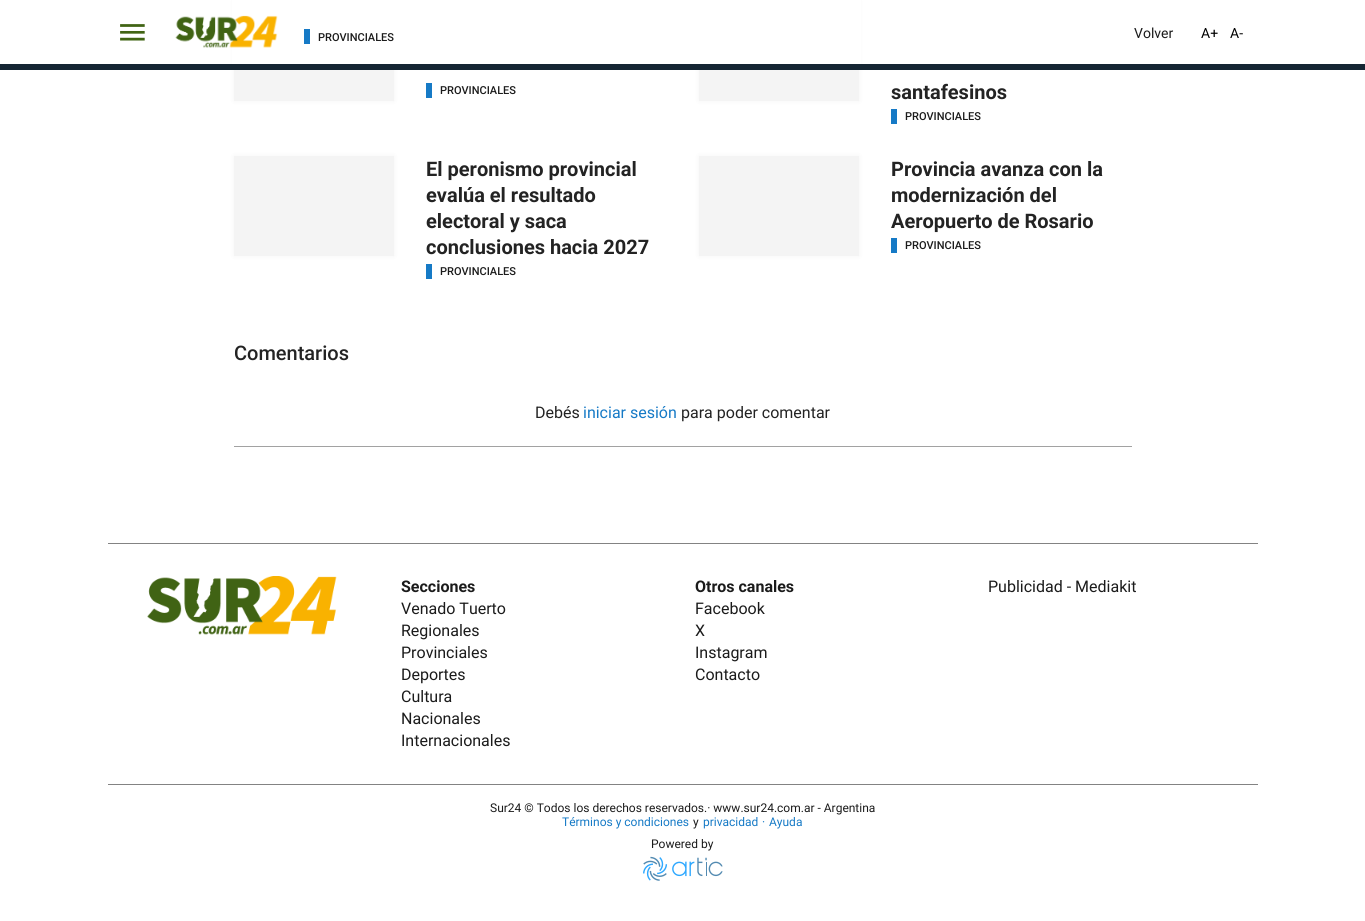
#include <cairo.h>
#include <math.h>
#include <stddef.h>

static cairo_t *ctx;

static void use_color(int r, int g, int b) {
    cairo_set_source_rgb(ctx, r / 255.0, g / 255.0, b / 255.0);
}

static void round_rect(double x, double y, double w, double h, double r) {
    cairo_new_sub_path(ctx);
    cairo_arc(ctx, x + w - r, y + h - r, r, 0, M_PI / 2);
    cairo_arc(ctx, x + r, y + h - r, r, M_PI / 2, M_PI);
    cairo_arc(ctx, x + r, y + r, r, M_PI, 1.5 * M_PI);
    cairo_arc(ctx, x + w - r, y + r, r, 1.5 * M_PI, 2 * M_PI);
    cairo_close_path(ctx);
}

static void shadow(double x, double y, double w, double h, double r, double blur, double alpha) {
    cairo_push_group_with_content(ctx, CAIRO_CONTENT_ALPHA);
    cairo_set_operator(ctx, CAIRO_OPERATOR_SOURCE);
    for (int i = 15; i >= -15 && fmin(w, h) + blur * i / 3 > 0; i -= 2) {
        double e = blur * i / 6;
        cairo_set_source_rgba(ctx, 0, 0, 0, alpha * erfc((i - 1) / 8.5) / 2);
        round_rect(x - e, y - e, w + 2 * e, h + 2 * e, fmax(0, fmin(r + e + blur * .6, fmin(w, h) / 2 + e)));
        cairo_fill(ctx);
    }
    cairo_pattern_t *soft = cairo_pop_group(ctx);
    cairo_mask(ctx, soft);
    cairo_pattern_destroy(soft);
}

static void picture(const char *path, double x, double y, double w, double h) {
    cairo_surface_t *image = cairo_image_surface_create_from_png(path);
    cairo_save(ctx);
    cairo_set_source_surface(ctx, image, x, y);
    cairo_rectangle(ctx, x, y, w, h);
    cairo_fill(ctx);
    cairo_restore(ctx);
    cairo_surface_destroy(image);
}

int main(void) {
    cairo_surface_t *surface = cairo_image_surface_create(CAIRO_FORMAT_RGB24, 1365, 921);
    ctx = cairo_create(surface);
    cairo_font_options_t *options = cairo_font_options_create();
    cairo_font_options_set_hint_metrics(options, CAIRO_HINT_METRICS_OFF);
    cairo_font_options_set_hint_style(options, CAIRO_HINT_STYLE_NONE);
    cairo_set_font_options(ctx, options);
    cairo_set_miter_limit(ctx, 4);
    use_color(255, 255, 255);
    cairo_paint(ctx);
    use_color(0, 0, 0);
    shadow(234, 1, 160, 100, 0, 2.5, 0.05);
    shadow(699, 1, 160, 100, 0, 2.5, 0.05);
    use_color(255, 255, 255);
    cairo_rectangle(ctx, 232, 0, 629, 64);
    cairo_fill(ctx);
    picture("img1.png", 120, 24, 25, 17);
    picture("img2.png", 175, 15, 103, 33);
    use_color(22, 122, 198);
    cairo_rectangle(ctx, 304, 29, 6, 15);
    cairo_fill(ctx);
    cairo_select_font_face(ctx, "Roboto Medium", CAIRO_FONT_SLANT_NORMAL, CAIRO_FONT_WEIGHT_NORMAL);
    cairo_set_font_size(ctx, 11);
    use_color(27, 27, 27);
    cairo_move_to(ctx, 318, 41);
    cairo_show_text(ctx, "PROVINCIALES");
    cairo_select_font_face(ctx, "Roboto", CAIRO_FONT_SLANT_NORMAL, CAIRO_FONT_WEIGHT_NORMAL);
    cairo_set_font_size(ctx, 14);
    cairo_move_to(ctx, 1134, 38);
    cairo_show_text(ctx, "Volver");
    use_color(0, 0, 0);
    cairo_move_to(ctx, 1201, 38);
    cairo_show_text(ctx, "A+");
    cairo_move_to(ctx, 1230, 38);
    cairo_show_text(ctx, "A-");
    use_color(21, 38, 51);
    cairo_rectangle(ctx, 0, 64, 1365, 6);
    cairo_fill(ctx);
    use_color(244, 244, 244);
    cairo_rectangle(ctx, 234, 70, 160, 31);
    cairo_fill(ctx);
    use_color(22, 122, 198);
    cairo_rectangle(ctx, 426, 83, 6, 15);
    cairo_fill(ctx);
    cairo_select_font_face(ctx, "Roboto Medium", CAIRO_FONT_SLANT_NORMAL, CAIRO_FONT_WEIGHT_NORMAL);
    cairo_set_font_size(ctx, 11);
    use_color(27, 27, 27);
    cairo_move_to(ctx, 440, 94);
    cairo_show_text(ctx, "PROVINCIALES");
    use_color(244, 244, 244);
    cairo_rectangle(ctx, 699, 70, 160, 31);
    cairo_fill(ctx);
    cairo_select_font_face(ctx, "Roboto", CAIRO_FONT_SLANT_NORMAL, CAIRO_FONT_WEIGHT_BOLD);
    cairo_set_font_size(ctx, 20);
    use_color(35, 35, 35);
    cairo_move_to(ctx, 891, 99);
    cairo_show_text(ctx, "santafesinos");
    use_color(22, 122, 198);
    cairo_rectangle(ctx, 891, 109, 6, 15);
    cairo_fill(ctx);
    cairo_select_font_face(ctx, "Roboto Medium", CAIRO_FONT_SLANT_NORMAL, CAIRO_FONT_WEIGHT_NORMAL);
    cairo_set_font_size(ctx, 11);
    use_color(27, 27, 27);
    cairo_move_to(ctx, 905, 120);
    cairo_show_text(ctx, "PROVINCIALES");
    use_color(0, 0, 0);
    shadow(234, 156, 160, 100, 0, 2.5, 0.05);
    use_color(244, 244, 244);
    cairo_rectangle(ctx, 234, 156, 160, 100);
    cairo_fill(ctx);
    cairo_select_font_face(ctx, "Roboto", CAIRO_FONT_SLANT_NORMAL, CAIRO_FONT_WEIGHT_BOLD);
    cairo_set_font_size(ctx, 20);
    use_color(35, 35, 35);
    cairo_move_to(ctx, 426, 176);
    cairo_show_text(ctx, "El peronismo provincial");
    cairo_move_to(ctx, 426, 202);
    cairo_show_text(ctx, "evalúa el resultado");
    cairo_move_to(ctx, 426, 228);
    cairo_show_text(ctx, "electoral y saca");
    cairo_move_to(ctx, 426, 254);
    cairo_show_text(ctx, "conclusiones hacia 2027");
    use_color(22, 122, 198);
    cairo_rectangle(ctx, 426, 264, 6, 15);
    cairo_fill(ctx);
    cairo_select_font_face(ctx, "Roboto Medium", CAIRO_FONT_SLANT_NORMAL, CAIRO_FONT_WEIGHT_NORMAL);
    cairo_set_font_size(ctx, 11);
    use_color(27, 27, 27);
    cairo_move_to(ctx, 440, 275);
    cairo_show_text(ctx, "PROVINCIALES");
    use_color(0, 0, 0);
    shadow(699, 156, 160, 100, 0, 2.5, 0.05);
    use_color(244, 244, 244);
    cairo_rectangle(ctx, 699, 156, 160, 100);
    cairo_fill(ctx);
    cairo_select_font_face(ctx, "Roboto", CAIRO_FONT_SLANT_NORMAL, CAIRO_FONT_WEIGHT_BOLD);
    cairo_set_font_size(ctx, 20);
    use_color(35, 35, 35);
    cairo_move_to(ctx, 891, 176);
    cairo_show_text(ctx, "Provincia avanza con la");
    cairo_move_to(ctx, 891, 202);
    cairo_show_text(ctx, "modernización del");
    cairo_move_to(ctx, 891, 228);
    cairo_show_text(ctx, "Aeropuerto de Rosario");
    use_color(22, 122, 198);
    cairo_rectangle(ctx, 891, 238, 6, 15);
    cairo_fill(ctx);
    cairo_select_font_face(ctx, "Roboto Medium", CAIRO_FONT_SLANT_NORMAL, CAIRO_FONT_WEIGHT_NORMAL);
    cairo_set_font_size(ctx, 11);
    use_color(27, 27, 27);
    cairo_move_to(ctx, 905, 249);
    cairo_show_text(ctx, "PROVINCIALES");
    cairo_set_font_size(ctx, 20);
    use_color(35, 35, 35);
    cairo_move_to(ctx, 234, 360);
    cairo_show_text(ctx, "Comentarios");
    cairo_select_font_face(ctx, "Roboto", CAIRO_FONT_SLANT_NORMAL, CAIRO_FONT_WEIGHT_NORMAL);
    cairo_set_font_size(ctx, 16);
    cairo_move_to(ctx, 535, 418);
    cairo_show_text(ctx, "Debés");
    use_color(22, 122, 198);
    cairo_move_to(ctx, 583, 418);
    cairo_show_text(ctx, "iniciar sesión");
    use_color(35, 35, 35);
    cairo_move_to(ctx, 681, 418);
    cairo_show_text(ctx, "para poder comentar");
    use_color(162, 162, 162);
    cairo_rectangle(ctx, 234, 446, 898, 1);
    cairo_fill(ctx);
    use_color(131, 131, 131);
    cairo_rectangle(ctx, 108, 543, 1150, 1);
    cairo_fill(ctx);
    cairo_rectangle(ctx, 108, 784, 1150, 1);
    cairo_fill(ctx);
    picture("img3.png", 147, 576, 190, 59);
    cairo_select_font_face(ctx, "Roboto", CAIRO_FONT_SLANT_NORMAL, CAIRO_FONT_WEIGHT_BOLD);
    use_color(27, 27, 27);
    cairo_move_to(ctx, 401, 592);
    cairo_show_text(ctx, "Secciones");
    cairo_select_font_face(ctx, "Roboto", CAIRO_FONT_SLANT_NORMAL, CAIRO_FONT_WEIGHT_NORMAL);
    cairo_move_to(ctx, 401, 614);
    cairo_show_text(ctx, "Venado Tuerto");
    cairo_move_to(ctx, 401, 636);
    cairo_show_text(ctx, "Regionales");
    cairo_move_to(ctx, 401, 658);
    cairo_show_text(ctx, "Provinciales");
    cairo_move_to(ctx, 401, 680);
    cairo_show_text(ctx, "Deportes");
    cairo_move_to(ctx, 401, 702);
    cairo_show_text(ctx, "Cultura");
    cairo_move_to(ctx, 401, 724);
    cairo_show_text(ctx, "Nacionales");
    cairo_move_to(ctx, 401, 746);
    cairo_show_text(ctx, "Internacionales");
    cairo_select_font_face(ctx, "Roboto", CAIRO_FONT_SLANT_NORMAL, CAIRO_FONT_WEIGHT_BOLD);
    cairo_move_to(ctx, 695, 592);
    cairo_show_text(ctx, "Otros canales");
    cairo_select_font_face(ctx, "Roboto", CAIRO_FONT_SLANT_NORMAL, CAIRO_FONT_WEIGHT_NORMAL);
    cairo_move_to(ctx, 695, 614);
    cairo_show_text(ctx, "Facebook");
    cairo_move_to(ctx, 695, 636);
    cairo_show_text(ctx, "X");
    cairo_move_to(ctx, 695, 658);
    cairo_show_text(ctx, "Instagram");
    cairo_move_to(ctx, 695, 680);
    cairo_show_text(ctx, "Contacto");
    cairo_move_to(ctx, 988, 592);
    cairo_show_text(ctx, "Publicidad - Mediakit");
    cairo_set_font_size(ctx, 12);
    cairo_move_to(ctx, 490, 812);
    cairo_show_text(ctx, "Sur24 © Todos los derechos reservados.· www.sur24.com.ar - Argentina");
    use_color(22, 122, 198);
    cairo_move_to(ctx, 562, 826);
    cairo_show_text(ctx, "Términos y condiciones");
    use_color(27, 27, 27);
    cairo_move_to(ctx, 693, 826);
    cairo_show_text(ctx, "y");
    use_color(22, 122, 198);
    cairo_move_to(ctx, 703, 826);
    cairo_show_text(ctx, "privacidad");
    cairo_move_to(ctx, 762, 826);
    cairo_show_text(ctx, "·");
    cairo_move_to(ctx, 769, 826);
    cairo_show_text(ctx, "Ayuda");
    use_color(27, 27, 27);
    cairo_move_to(ctx, 651, 848);
    cairo_show_text(ctx, "Powered by");
    picture("img4.png", 643, 856, 80, 25);
    cairo_surface_write_to_png(surface, "result.png");
    cairo_font_options_destroy(options);
    cairo_destroy(ctx);
    cairo_surface_destroy(surface);
    return 0;
}
